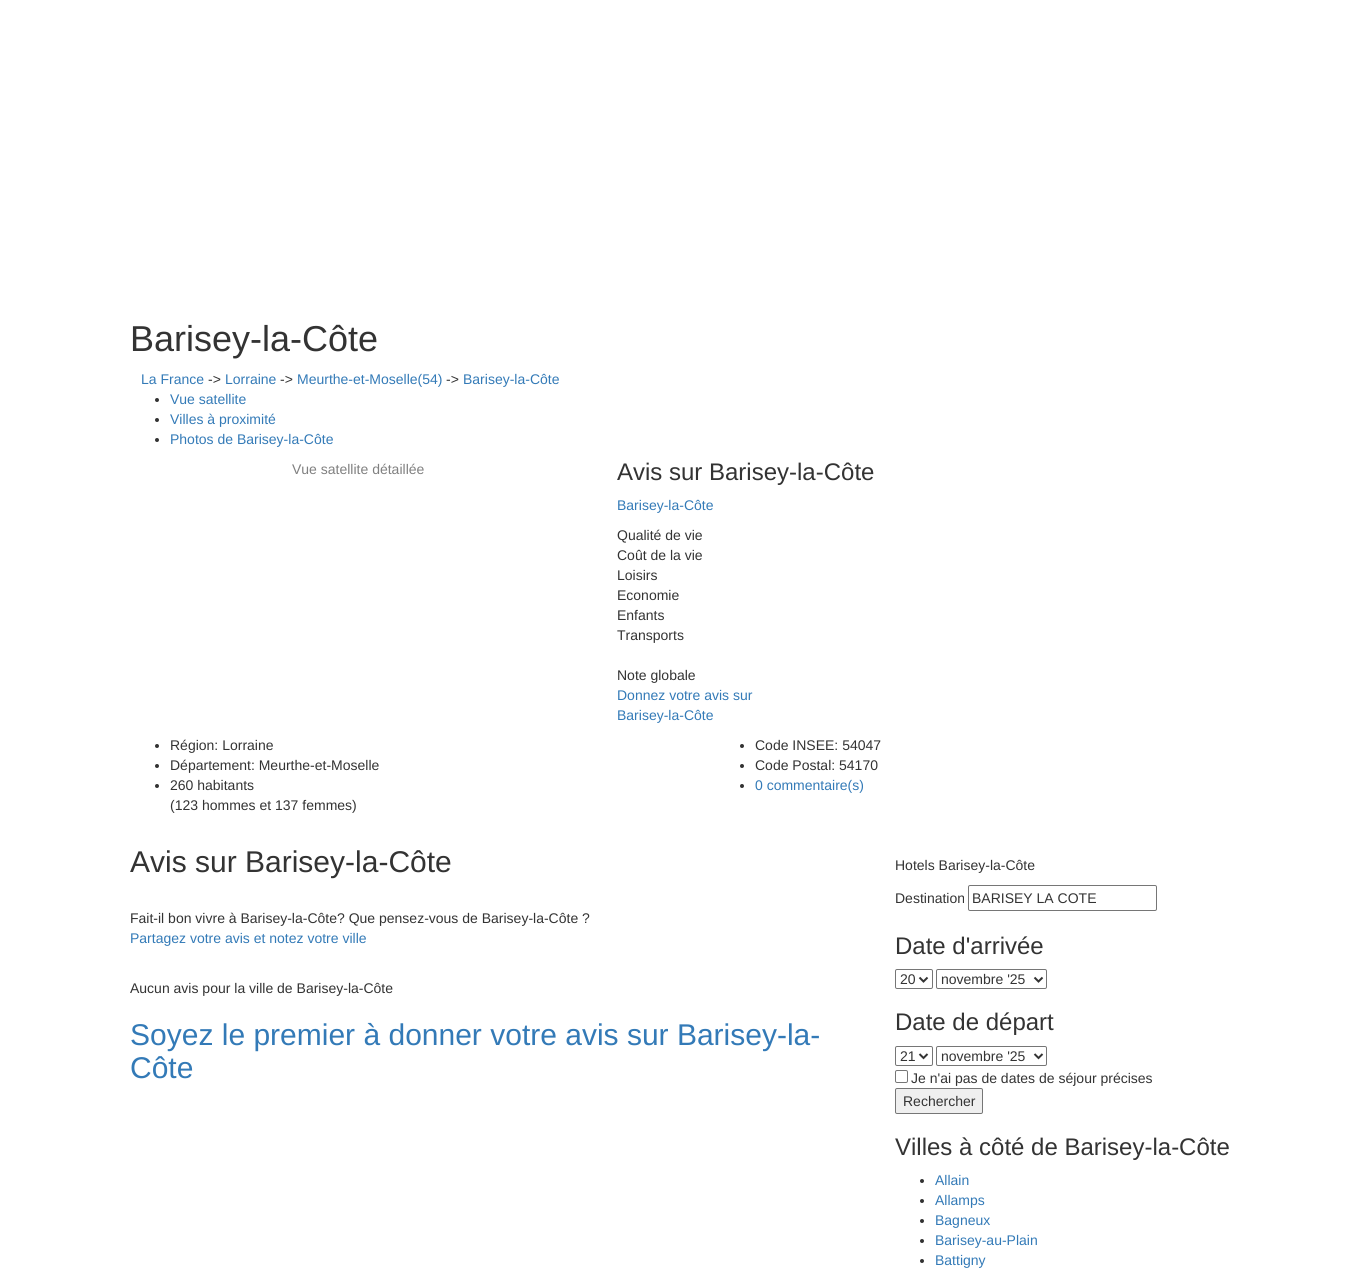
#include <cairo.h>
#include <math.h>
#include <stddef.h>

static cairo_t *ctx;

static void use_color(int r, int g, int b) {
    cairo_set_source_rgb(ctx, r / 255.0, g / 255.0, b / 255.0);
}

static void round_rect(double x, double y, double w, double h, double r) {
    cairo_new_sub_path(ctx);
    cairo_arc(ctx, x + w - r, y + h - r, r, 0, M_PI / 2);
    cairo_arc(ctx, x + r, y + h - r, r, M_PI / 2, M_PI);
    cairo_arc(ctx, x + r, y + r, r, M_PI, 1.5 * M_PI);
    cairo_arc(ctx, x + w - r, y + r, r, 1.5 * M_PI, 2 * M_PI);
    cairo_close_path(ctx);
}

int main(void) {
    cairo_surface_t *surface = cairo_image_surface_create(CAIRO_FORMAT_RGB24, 1369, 1278);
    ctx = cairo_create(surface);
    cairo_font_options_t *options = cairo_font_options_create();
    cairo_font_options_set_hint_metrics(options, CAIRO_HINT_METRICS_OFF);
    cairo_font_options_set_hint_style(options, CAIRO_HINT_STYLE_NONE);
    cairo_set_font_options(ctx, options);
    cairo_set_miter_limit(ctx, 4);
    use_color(255, 255, 255);
    cairo_paint(ctx);
    cairo_select_font_face(ctx, "Liberation Sans", CAIRO_FONT_SLANT_NORMAL, CAIRO_FONT_WEIGHT_NORMAL);
    cairo_set_font_size(ctx, 36);
    use_color(51, 51, 51);
    cairo_move_to(ctx, 130, 351);
    cairo_show_text(ctx, "Barisey-la-Côte");
    cairo_set_font_size(ctx, 14);
    use_color(51, 122, 183);
    cairo_move_to(ctx, 141, 384);
    cairo_show_text(ctx, "La France");
    use_color(51, 51, 51);
    cairo_move_to(ctx, 208, 384);
    cairo_show_text(ctx, "->");
    use_color(51, 122, 183);
    cairo_move_to(ctx, 225, 384);
    cairo_show_text(ctx, "Lorraine");
    use_color(51, 51, 51);
    cairo_move_to(ctx, 280, 384);
    cairo_show_text(ctx, "->");
    use_color(51, 122, 183);
    cairo_move_to(ctx, 297, 384);
    cairo_show_text(ctx, "Meurthe-et-Moselle(54)");
    use_color(51, 51, 51);
    cairo_move_to(ctx, 446, 384);
    cairo_show_text(ctx, "->");
    use_color(51, 122, 183);
    cairo_move_to(ctx, 463, 384);
    cairo_show_text(ctx, "Barisey-la-Côte");
    use_color(51, 51, 51);
    cairo_new_path(ctx);
    cairo_arc(ctx, 157, 400, 2, 0, 2 * M_PI);
    cairo_fill(ctx);
    use_color(51, 122, 183);
    cairo_move_to(ctx, 170, 404);
    cairo_show_text(ctx, "Vue satellite");
    use_color(51, 51, 51);
    cairo_new_path(ctx);
    cairo_arc(ctx, 157, 420, 2, 0, 2 * M_PI);
    cairo_fill(ctx);
    use_color(51, 122, 183);
    cairo_move_to(ctx, 170, 424);
    cairo_show_text(ctx, "Villes à proximité");
    use_color(51, 51, 51);
    cairo_new_path(ctx);
    cairo_arc(ctx, 157, 440, 2, 0, 2 * M_PI);
    cairo_fill(ctx);
    use_color(51, 122, 183);
    cairo_move_to(ctx, 170, 444);
    cairo_show_text(ctx, "Photos de Barisey-la-Côte");
    use_color(128, 128, 128);
    cairo_move_to(ctx, 292, 474);
    cairo_show_text(ctx, "Vue satellite détaillée");
    cairo_set_font_size(ctx, 24);
    use_color(51, 51, 51);
    cairo_move_to(ctx, 617, 480);
    cairo_show_text(ctx, "Avis sur Barisey-la-Côte");
    cairo_set_font_size(ctx, 14);
    use_color(51, 122, 183);
    cairo_move_to(ctx, 617, 510);
    cairo_show_text(ctx, "Barisey-la-Côte");
    use_color(51, 51, 51);
    cairo_move_to(ctx, 617, 540);
    cairo_show_text(ctx, "Qualité de vie");
    cairo_move_to(ctx, 617, 560);
    cairo_show_text(ctx, "Coût de la vie");
    cairo_move_to(ctx, 617, 580);
    cairo_show_text(ctx, "Loisirs");
    cairo_move_to(ctx, 617, 600);
    cairo_show_text(ctx, "Economie");
    cairo_move_to(ctx, 617, 620);
    cairo_show_text(ctx, "Enfants");
    cairo_move_to(ctx, 617, 640);
    cairo_show_text(ctx, "Transports");
    cairo_move_to(ctx, 617, 680);
    cairo_show_text(ctx, "Note globale");
    use_color(51, 122, 183);
    cairo_move_to(ctx, 617, 700);
    cairo_show_text(ctx, "Donnez votre avis sur");
    cairo_move_to(ctx, 617, 720);
    cairo_show_text(ctx, "Barisey-la-Côte");
    use_color(51, 51, 51);
    cairo_new_path(ctx);
    cairo_arc(ctx, 157, 746, 2, 0, 2 * M_PI);
    cairo_fill(ctx);
    cairo_move_to(ctx, 170, 750);
    cairo_show_text(ctx, "Région: Lorraine");
    cairo_new_path(ctx);
    cairo_arc(ctx, 157, 766, 2, 0, 2 * M_PI);
    cairo_fill(ctx);
    cairo_move_to(ctx, 170, 770);
    cairo_show_text(ctx, "Département: Meurthe-et-Moselle");
    cairo_new_path(ctx);
    cairo_arc(ctx, 157, 786, 2, 0, 2 * M_PI);
    cairo_fill(ctx);
    cairo_move_to(ctx, 170, 790);
    cairo_show_text(ctx, "260 habitants");
    cairo_move_to(ctx, 170, 810);
    cairo_show_text(ctx, "(123 hommes et 137 femmes)");
    cairo_new_path(ctx);
    cairo_arc(ctx, 742, 746, 2, 0, 2 * M_PI);
    cairo_fill(ctx);
    cairo_move_to(ctx, 755, 750);
    cairo_show_text(ctx, "Code INSEE: 54047");
    cairo_new_path(ctx);
    cairo_arc(ctx, 742, 766, 2, 0, 2 * M_PI);
    cairo_fill(ctx);
    cairo_move_to(ctx, 755, 770);
    cairo_show_text(ctx, "Code Postal: 54170");
    cairo_new_path(ctx);
    cairo_arc(ctx, 742, 786, 2, 0, 2 * M_PI);
    cairo_fill(ctx);
    use_color(51, 122, 183);
    cairo_move_to(ctx, 755, 790);
    cairo_show_text(ctx, "0 commentaire(s)");
    cairo_set_font_size(ctx, 30);
    use_color(51, 51, 51);
    cairo_move_to(ctx, 130, 872);
    cairo_show_text(ctx, "Avis sur Barisey-la-Côte");
    cairo_set_font_size(ctx, 14);
    cairo_move_to(ctx, 130, 923);
    cairo_show_text(ctx, "Fait-il bon vivre à Barisey-la-Côte? Que pensez-vous de Barisey-la-Côte ?");
    use_color(51, 122, 183);
    cairo_move_to(ctx, 130, 943);
    cairo_show_text(ctx, "Partagez votre avis et notez votre ville");
    use_color(51, 51, 51);
    cairo_move_to(ctx, 130, 993);
    cairo_show_text(ctx, "Aucun avis pour la ville de Barisey-la-Côte");
    cairo_set_font_size(ctx, 30);
    use_color(51, 122, 183);
    cairo_move_to(ctx, 130, 1045);
    cairo_show_text(ctx, "Soyez le premier à donner votre avis sur Barisey-la-");
    cairo_move_to(ctx, 130, 1078);
    cairo_show_text(ctx, "Côte");
    cairo_set_font_size(ctx, 14);
    use_color(51, 51, 51);
    cairo_move_to(ctx, 895, 870);
    cairo_show_text(ctx, "Hotels Barisey-la-Côte");
    cairo_move_to(ctx, 895, 903);
    cairo_show_text(ctx, "Destination");
    round_rect(968.5, 885.5, 188, 25, 1.5);
    use_color(118, 118, 118);
    cairo_set_line_width(ctx, 1);
    cairo_stroke(ctx);
    use_color(51, 51, 51);
    cairo_move_to(ctx, 972, 903);
    cairo_show_text(ctx, "BARISEY LA COTE");
    cairo_set_font_size(ctx, 24);
    cairo_move_to(ctx, 895, 954);
    cairo_show_text(ctx, "Date d'arrivée");
    round_rect(895.5, 969.5, 37, 19, 1.5);
    use_color(118, 118, 118);
    cairo_stroke(ctx);
    cairo_new_path(ctx);
    cairo_move_to(ctx, 919.5, 977.5);
    cairo_line_to(ctx, 923.5, 981.5);
    cairo_line_to(ctx, 927.5, 977.5);
    use_color(51, 51, 51);
    cairo_set_line_width(ctx, 2);
    cairo_stroke(ctx);
    cairo_set_font_size(ctx, 14);
    cairo_move_to(ctx, 900, 984);
    cairo_show_text(ctx, "20");
    round_rect(936.5, 969.5, 110, 19, 1.5);
    use_color(118, 118, 118);
    cairo_set_line_width(ctx, 1);
    cairo_stroke(ctx);
    cairo_new_path(ctx);
    cairo_move_to(ctx, 1034.5, 977.5);
    cairo_line_to(ctx, 1038.5, 981.5);
    cairo_line_to(ctx, 1042.5, 977.5);
    use_color(51, 51, 51);
    cairo_set_line_width(ctx, 2);
    cairo_stroke(ctx);
    cairo_move_to(ctx, 941, 984);
    cairo_show_text(ctx, "novembre '25");
    cairo_set_font_size(ctx, 24);
    cairo_move_to(ctx, 895, 1030);
    cairo_show_text(ctx, "Date de départ");
    round_rect(895.5, 1046.5, 37, 19, 1.5);
    use_color(118, 118, 118);
    cairo_set_line_width(ctx, 1);
    cairo_stroke(ctx);
    cairo_new_path(ctx);
    cairo_move_to(ctx, 919.5, 1054);
    cairo_line_to(ctx, 923.5, 1058);
    cairo_line_to(ctx, 927.5, 1054);
    use_color(51, 51, 51);
    cairo_set_line_width(ctx, 2);
    cairo_stroke(ctx);
    cairo_set_font_size(ctx, 14);
    cairo_move_to(ctx, 900, 1061);
    cairo_show_text(ctx, "21");
    round_rect(936.5, 1046.5, 110, 19, 1.5);
    use_color(118, 118, 118);
    cairo_set_line_width(ctx, 1);
    cairo_stroke(ctx);
    cairo_new_path(ctx);
    cairo_move_to(ctx, 1034.5, 1054);
    cairo_line_to(ctx, 1038.5, 1058);
    cairo_line_to(ctx, 1042.5, 1054);
    use_color(51, 51, 51);
    cairo_set_line_width(ctx, 2);
    cairo_stroke(ctx);
    cairo_move_to(ctx, 941, 1061);
    cairo_show_text(ctx, "novembre '25");
    round_rect(895.5, 1070.5, 12, 12, 1.5);
    use_color(118, 118, 118);
    cairo_set_line_width(ctx, 1);
    cairo_stroke(ctx);
    use_color(51, 51, 51);
    cairo_move_to(ctx, 911, 1083);
    cairo_show_text(ctx, "Je n'ai pas de dates de séjour précises");
    use_color(239, 239, 239);
    round_rect(895.5, 1088.5, 87, 25, 1.5);
    cairo_fill_preserve(ctx);
    use_color(118, 118, 118);
    cairo_stroke(ctx);
    use_color(51, 51, 51);
    cairo_move_to(ctx, 903, 1106);
    cairo_show_text(ctx, "Rechercher");
    cairo_set_font_size(ctx, 24);
    cairo_move_to(ctx, 895, 1155);
    cairo_show_text(ctx, "Villes à côté de Barisey-la-Côte");
    cairo_new_path(ctx);
    cairo_arc(ctx, 922, 1181, 2, 0, 2 * M_PI);
    cairo_fill(ctx);
    cairo_set_font_size(ctx, 14);
    use_color(51, 122, 183);
    cairo_move_to(ctx, 935, 1185);
    cairo_show_text(ctx, "Allain");
    use_color(51, 51, 51);
    cairo_new_path(ctx);
    cairo_arc(ctx, 922, 1201, 2, 0, 2 * M_PI);
    cairo_fill(ctx);
    use_color(51, 122, 183);
    cairo_move_to(ctx, 935, 1205);
    cairo_show_text(ctx, "Allamps");
    use_color(51, 51, 51);
    cairo_new_path(ctx);
    cairo_arc(ctx, 922, 1221, 2, 0, 2 * M_PI);
    cairo_fill(ctx);
    use_color(51, 122, 183);
    cairo_move_to(ctx, 935, 1225);
    cairo_show_text(ctx, "Bagneux");
    use_color(51, 51, 51);
    cairo_new_path(ctx);
    cairo_arc(ctx, 922, 1241, 2, 0, 2 * M_PI);
    cairo_fill(ctx);
    use_color(51, 122, 183);
    cairo_move_to(ctx, 935, 1245);
    cairo_show_text(ctx, "Barisey-au-Plain");
    use_color(51, 51, 51);
    cairo_new_path(ctx);
    cairo_arc(ctx, 922, 1261, 2, 0, 2 * M_PI);
    cairo_fill(ctx);
    use_color(51, 122, 183);
    cairo_move_to(ctx, 935, 1265);
    cairo_show_text(ctx, "Battigny");
    cairo_surface_write_to_png(surface, "result.png");
    cairo_font_options_destroy(options);
    cairo_destroy(ctx);
    cairo_surface_destroy(surface);
    return 0;
}
